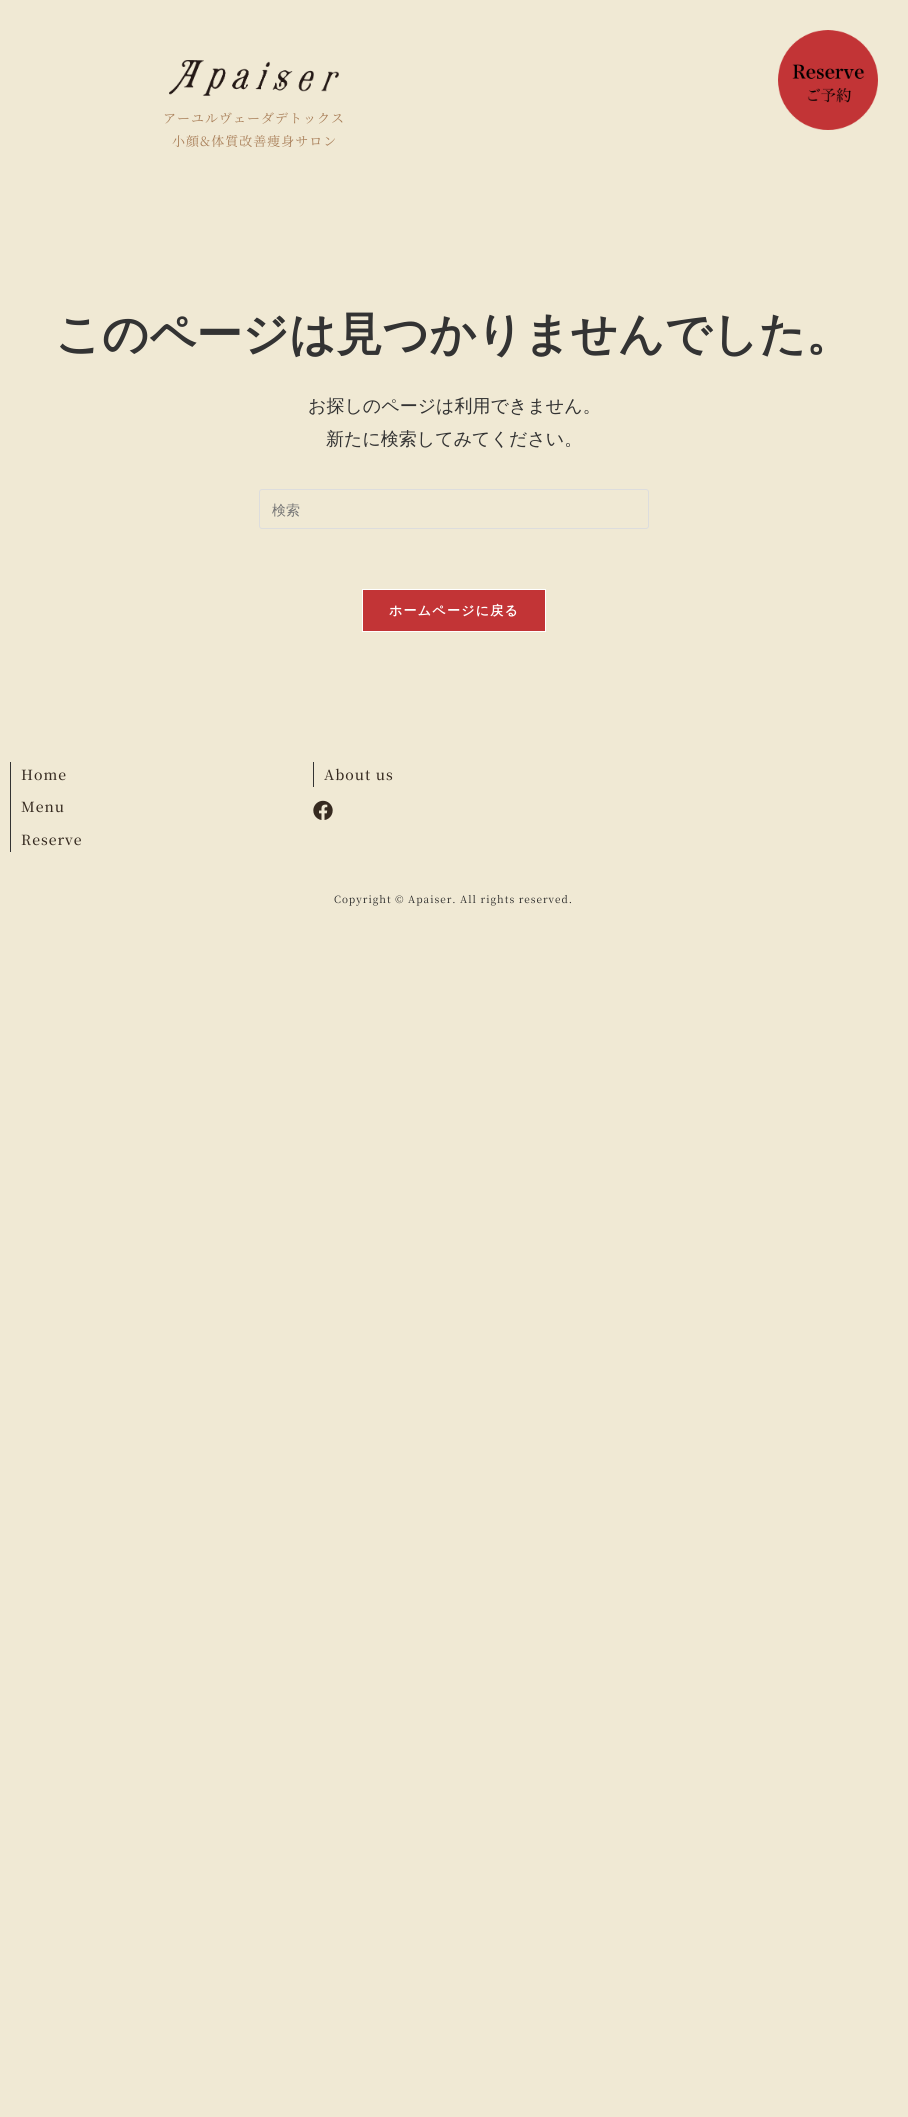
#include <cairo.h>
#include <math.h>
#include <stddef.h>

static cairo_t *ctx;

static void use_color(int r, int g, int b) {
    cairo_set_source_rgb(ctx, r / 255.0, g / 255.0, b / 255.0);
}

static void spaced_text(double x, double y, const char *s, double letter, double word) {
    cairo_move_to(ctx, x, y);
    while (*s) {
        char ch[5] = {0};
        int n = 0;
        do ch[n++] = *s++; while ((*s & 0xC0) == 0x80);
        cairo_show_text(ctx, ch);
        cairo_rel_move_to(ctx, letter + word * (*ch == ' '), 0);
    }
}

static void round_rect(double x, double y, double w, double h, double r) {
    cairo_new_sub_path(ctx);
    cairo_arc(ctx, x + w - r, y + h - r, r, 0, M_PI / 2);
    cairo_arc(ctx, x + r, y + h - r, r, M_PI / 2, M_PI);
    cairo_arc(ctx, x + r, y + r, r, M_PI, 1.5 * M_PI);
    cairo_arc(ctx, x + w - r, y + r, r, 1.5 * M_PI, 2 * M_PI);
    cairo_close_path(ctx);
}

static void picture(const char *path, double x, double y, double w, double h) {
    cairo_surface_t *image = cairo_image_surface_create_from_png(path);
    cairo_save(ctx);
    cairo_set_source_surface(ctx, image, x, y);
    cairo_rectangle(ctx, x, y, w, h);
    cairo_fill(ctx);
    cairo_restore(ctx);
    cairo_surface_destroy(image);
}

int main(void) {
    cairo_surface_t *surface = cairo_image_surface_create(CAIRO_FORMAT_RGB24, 908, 2117);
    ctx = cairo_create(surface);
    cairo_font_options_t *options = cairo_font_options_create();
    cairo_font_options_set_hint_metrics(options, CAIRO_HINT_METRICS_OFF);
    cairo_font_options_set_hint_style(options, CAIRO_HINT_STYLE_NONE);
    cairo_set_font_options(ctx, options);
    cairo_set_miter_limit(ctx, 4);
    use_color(240, 233, 212);
    cairo_paint(ctx);
    picture("img1.png", 778, 30, 100, 100);
    picture("img2.png", 169, 60, 170, 36);
    cairo_select_font_face(ctx, "Noto Serif JP", CAIRO_FONT_SLANT_NORMAL, CAIRO_FONT_WEIGHT_NORMAL);
    cairo_set_font_size(ctx, 13);
    use_color(169, 127, 89);
    spaced_text(163, 123, "アーユルヴェーダデトックス", 1, 0);
    spaced_text(172, 146, "小顔&体質改善痩身サロン", 1, 0);
    cairo_select_font_face(ctx, "WenQuanYi Zen Hei", CAIRO_FONT_SLANT_NORMAL, CAIRO_FONT_WEIGHT_BOLD);
    cairo_set_font_size(ctx, 46);
    use_color(51, 51, 51);
    cairo_move_to(ctx, 55, 350);
    cairo_show_text(ctx, "このページは見つかりませんでした。");
    cairo_select_font_face(ctx, "WenQuanYi Zen Hei Medium", CAIRO_FONT_SLANT_NORMAL, CAIRO_FONT_WEIGHT_NORMAL);
    cairo_set_font_size(ctx, 18);
    cairo_move_to(ctx, 308, 412);
    cairo_show_text(ctx, "お探しのページは利用できません。");
    cairo_move_to(ctx, 326, 445);
    cairo_show_text(ctx, "新たに検索してみてください。");
    round_rect(259.5, 489.5, 389, 39, 2.5);
    use_color(221, 221, 221);
    cairo_set_line_width(ctx, 1);
    cairo_stroke(ctx);
    cairo_set_font_size(ctx, 14);
    use_color(117, 117, 117);
    cairo_move_to(ctx, 272, 515);
    cairo_show_text(ctx, "検索");
    use_color(194, 52, 54);
    cairo_rectangle(ctx, 362.5, 589.5, 183, 42);
    cairo_fill_preserve(ctx);
    use_color(255, 255, 255);
    cairo_stroke(ctx);
    cairo_select_font_face(ctx, "WenQuanYi Zen Hei", CAIRO_FONT_SLANT_NORMAL, CAIRO_FONT_WEIGHT_BOLD);
    cairo_set_font_size(ctx, 13);
    spaced_text(389, 615, "ホームページに戻る", 1.25, 0);
    use_color(51, 51, 51);
    cairo_rectangle(ctx, 10, 762, 1, 90);
    cairo_fill(ctx);
    cairo_select_font_face(ctx, "Noto Serif JP Medium", CAIRO_FONT_SLANT_NORMAL, CAIRO_FONT_WEIGHT_NORMAL);
    cairo_set_font_size(ctx, 14);
    use_color(54, 42, 32);
    spaced_text(21, 780, "Home", 1, 0);
    spaced_text(21, 812, "Menu", 1, 0);
    spaced_text(21, 845, "Reserve", 1, 0);
    use_color(51, 51, 51);
    cairo_rectangle(ctx, 313, 762, 1, 25);
    cairo_fill(ctx);
    use_color(54, 42, 32);
    spaced_text(324, 780, "About us", 1, 0);
    picture("img3.png", 313, 800, 20, 20);
    cairo_select_font_face(ctx, "Noto Serif JP", CAIRO_FONT_SLANT_NORMAL, CAIRO_FONT_WEIGHT_NORMAL);
    cairo_set_font_size(ctx, 10);
    use_color(37, 37, 37);
    spaced_text(334, 903, "Copyright © Apaiser. All rights reserved.", 1, 0);
    cairo_surface_write_to_png(surface, "result.png");
    cairo_font_options_destroy(options);
    cairo_destroy(ctx);
    cairo_surface_destroy(surface);
    return 0;
}
